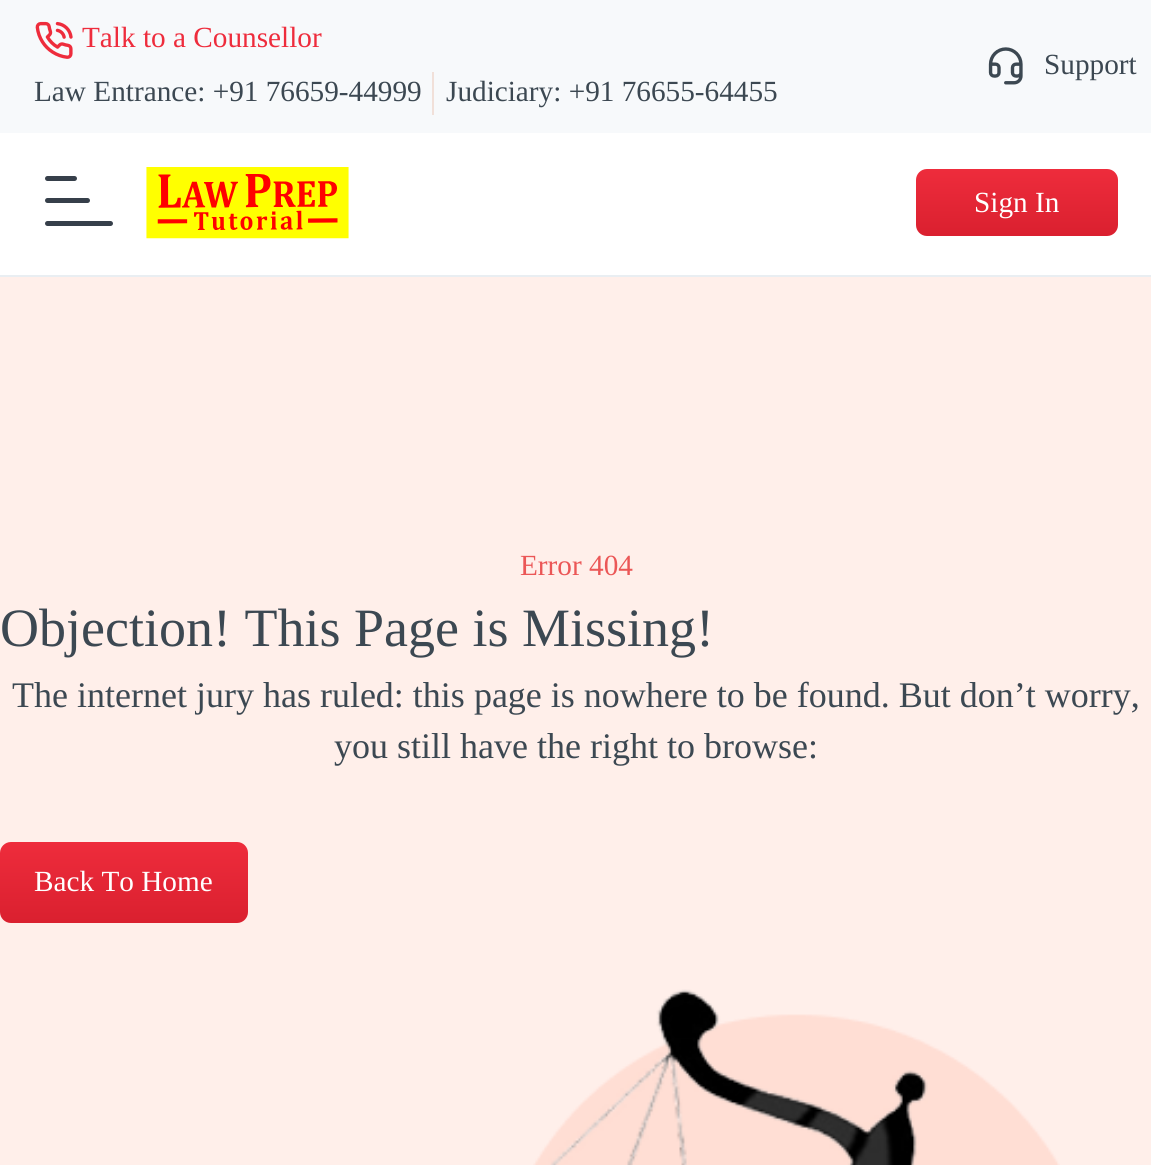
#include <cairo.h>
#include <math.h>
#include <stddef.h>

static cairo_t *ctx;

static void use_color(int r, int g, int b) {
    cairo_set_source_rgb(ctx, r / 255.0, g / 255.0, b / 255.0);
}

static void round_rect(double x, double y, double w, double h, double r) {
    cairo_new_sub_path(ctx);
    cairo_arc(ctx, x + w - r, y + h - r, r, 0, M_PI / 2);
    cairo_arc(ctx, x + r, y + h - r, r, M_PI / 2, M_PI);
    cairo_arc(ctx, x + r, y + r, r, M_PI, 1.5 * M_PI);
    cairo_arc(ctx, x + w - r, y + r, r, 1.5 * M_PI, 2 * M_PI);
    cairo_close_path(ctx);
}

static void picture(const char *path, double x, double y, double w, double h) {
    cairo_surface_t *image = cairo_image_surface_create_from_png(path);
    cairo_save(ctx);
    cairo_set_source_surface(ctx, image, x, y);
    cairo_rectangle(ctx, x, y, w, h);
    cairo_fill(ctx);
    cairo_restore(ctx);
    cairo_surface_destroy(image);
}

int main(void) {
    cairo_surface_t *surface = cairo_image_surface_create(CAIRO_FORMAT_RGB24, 1151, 1165);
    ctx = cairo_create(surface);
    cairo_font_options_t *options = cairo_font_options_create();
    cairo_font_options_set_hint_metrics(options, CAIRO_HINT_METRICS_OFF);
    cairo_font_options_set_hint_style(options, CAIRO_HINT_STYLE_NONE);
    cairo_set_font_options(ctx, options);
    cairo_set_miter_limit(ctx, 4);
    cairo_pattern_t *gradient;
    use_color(247, 249, 251);
    cairo_paint(ctx);
    picture("img1.png", 35, 21, 38, 38);
    cairo_select_font_face(ctx, "Liberation Serif", CAIRO_FONT_SLANT_NORMAL, CAIRO_FONT_WEIGHT_NORMAL);
    cairo_set_font_size(ctx, 29.25);
    use_color(238, 44, 60);
    cairo_move_to(ctx, 82, 47);
    cairo_show_text(ctx, "Talk to a Counsellor");
    use_color(60, 72, 82);
    cairo_move_to(ctx, 34, 101);
    cairo_show_text(ctx, "Law Entrance: +91 76659-44999");
    use_color(241, 224, 217);
    cairo_rectangle(ctx, 432, 72, 2, 43);
    cairo_fill(ctx);
    use_color(60, 72, 82);
    cairo_move_to(ctx, 446, 101);
    cairo_show_text(ctx, "Judiciary: +91 76655-64455");
    picture("img2.png", 988, 47, 35, 38);
    cairo_move_to(ctx, 1044, 74);
    cairo_show_text(ctx, "Support");
    use_color(255, 255, 255);
    cairo_rectangle(ctx, 0, 133, 1151, 142);
    cairo_fill(ctx);
    use_color(233, 238, 242);
    cairo_rectangle(ctx, 0, 275, 1151, 2);
    cairo_fill(ctx);
    picture("img3.png", 146, 167, 203, 72);
    gradient = cairo_pattern_create_linear(1017, 236, 1017, 169);
    cairo_pattern_add_color_stop_rgba(gradient, 0, 0.855, 0.125, 0.184, 1);
    cairo_pattern_add_color_stop_rgba(gradient, 1, 0.933, 0.173, 0.235, 1);
    cairo_set_source(ctx, gradient);
    cairo_pattern_destroy(gradient);
    round_rect(916, 169, 202, 67, 11);
    cairo_fill(ctx);
    use_color(255, 255, 255);
    cairo_move_to(ctx, 974, 212);
    cairo_show_text(ctx, "Sign In");
    use_color(255, 239, 234);
    cairo_rectangle(ctx, 0, 277, 1151, 888);
    cairo_fill(ctx);
    use_color(235, 87, 87);
    cairo_move_to(ctx, 520, 575);
    cairo_show_text(ctx, "Error 404");
    cairo_set_font_size(ctx, 54);
    use_color(60, 72, 82);
    cairo_move_to(ctx, 0, 646);
    cairo_show_text(ctx, "Objection! This Page is Missing!");
    cairo_set_font_size(ctx, 36);
    cairo_move_to(ctx, 12, 707);
    cairo_show_text(ctx, "The internet jury has ruled: this page is nowhere to be found. But don’t worry,");
    cairo_move_to(ctx, 334, 758);
    cairo_show_text(ctx, "you still have the right to browse:");
    gradient = cairo_pattern_create_linear(124, 923, 124, 842);
    cairo_pattern_add_color_stop_rgba(gradient, 0, 0.855, 0.125, 0.184, 1);
    cairo_pattern_add_color_stop_rgba(gradient, 1, 0.933, 0.173, 0.235, 1);
    cairo_set_source(ctx, gradient);
    cairo_pattern_destroy(gradient);
    round_rect(0, 842, 248, 81, 11);
    cairo_fill(ctx);
    cairo_set_font_size(ctx, 29.25);
    use_color(255, 255, 255);
    cairo_move_to(ctx, 34, 891);
    cairo_show_text(ctx, "Back To Home");
    picture("img4.png", 533, 989, 527, 176);
    use_color(54, 63, 74);
    round_rect(45, 176, 32, 5, 2.5);
    cairo_fill(ctx);
    round_rect(45, 198, 45, 5, 2.5);
    cairo_fill(ctx);
    round_rect(45, 221, 68, 5, 2.5);
    cairo_fill(ctx);
    cairo_surface_write_to_png(surface, "result.png");
    cairo_font_options_destroy(options);
    cairo_destroy(ctx);
    cairo_surface_destroy(surface);
    return 0;
}
